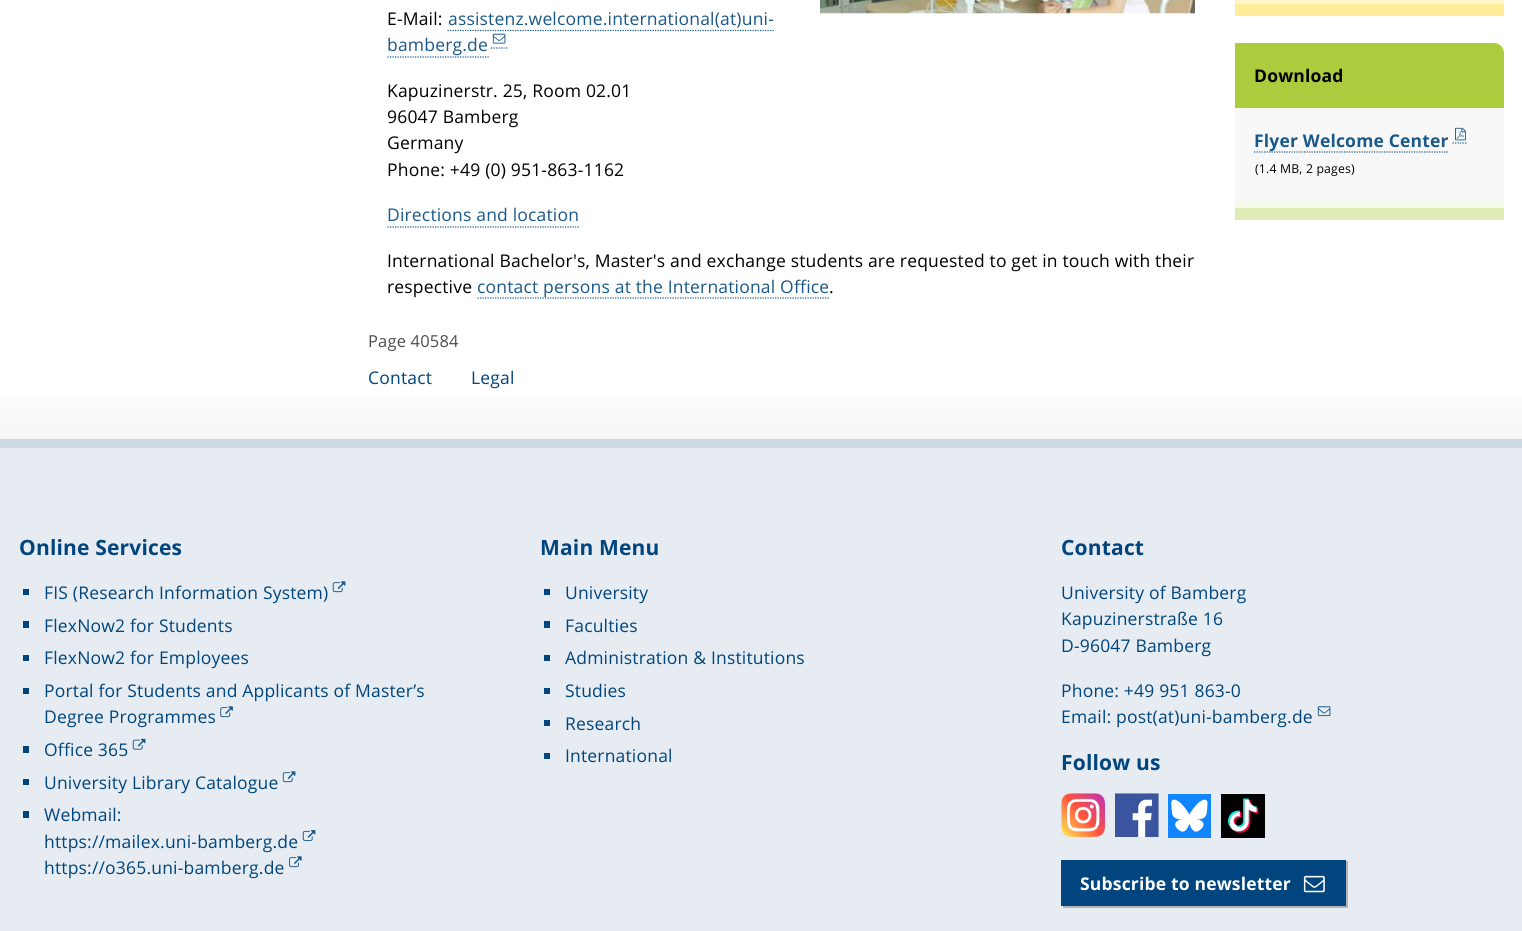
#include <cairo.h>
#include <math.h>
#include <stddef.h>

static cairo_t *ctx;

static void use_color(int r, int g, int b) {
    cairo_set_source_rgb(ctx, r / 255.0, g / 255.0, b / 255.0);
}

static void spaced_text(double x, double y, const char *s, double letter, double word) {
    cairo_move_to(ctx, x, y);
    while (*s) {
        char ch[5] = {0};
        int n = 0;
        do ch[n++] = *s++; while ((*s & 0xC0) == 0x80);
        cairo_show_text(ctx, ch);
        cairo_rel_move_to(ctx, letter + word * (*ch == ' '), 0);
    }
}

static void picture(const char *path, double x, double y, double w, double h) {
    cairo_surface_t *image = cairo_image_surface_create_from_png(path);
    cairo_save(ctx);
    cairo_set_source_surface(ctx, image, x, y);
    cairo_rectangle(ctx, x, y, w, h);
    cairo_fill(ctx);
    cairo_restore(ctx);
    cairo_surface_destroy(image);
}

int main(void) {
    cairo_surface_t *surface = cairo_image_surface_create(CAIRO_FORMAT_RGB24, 1522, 931);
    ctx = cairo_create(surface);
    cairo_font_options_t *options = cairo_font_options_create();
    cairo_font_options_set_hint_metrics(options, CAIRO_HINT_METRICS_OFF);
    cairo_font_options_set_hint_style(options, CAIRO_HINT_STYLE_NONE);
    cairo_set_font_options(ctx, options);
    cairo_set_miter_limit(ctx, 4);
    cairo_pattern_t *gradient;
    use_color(255, 255, 255);
    cairo_paint(ctx);
    picture("img1.png", 820, 0, 375, 14);
    cairo_new_path(ctx);
    cairo_move_to(ctx, 447.5, 30.5);
    cairo_line_to(ctx, 774, 30.5);
    use_color(26, 88, 138);
    cairo_set_line_width(ctx, 1.2);
    cairo_set_dash(ctx, (double[]){1.25, 1.25}, 2, 0);
    cairo_stroke(ctx);
    cairo_new_path(ctx);
    cairo_move_to(ctx, 387.5, 57);
    cairo_line_to(ctx, 489, 57);
    cairo_stroke(ctx);
    cairo_new_path(ctx);
    cairo_move_to(ctx, 491, 48);
    cairo_line_to(ctx, 507.5, 48);
    cairo_stroke(ctx);
    cairo_select_font_face(ctx, "Open Sans", CAIRO_FONT_SLANT_NORMAL, CAIRO_FONT_WEIGHT_NORMAL);
    cairo_set_font_size(ctx, 17.5);
    spaced_text(448, 25, "assistenz.welcome.international(at)uni-", 0.18, 0);
    spaced_text(387, 51, "bamberg.de", 0.18, 0);
    picture("img2.png", 492, 33, 14, 11);
    use_color(0, 0, 0);
    spaced_text(387, 25, "E-Mail:", 0.18, 0);
    spaced_text(387, 97, "Kapuzinerstr. 25, Room 02.01", 0.18, 0);
    spaced_text(387, 123, "96047 Bamberg", 0.18, 0);
    spaced_text(387, 149, "Germany", 0.18, 0);
    spaced_text(387, 176, "Phone: +49 (0) 951-863-1162", 0.18, 0);
    use_color(26, 88, 138);
    spaced_text(387, 221, "Directions and location", 0.18, 0);
    cairo_new_path(ctx);
    cairo_move_to(ctx, 387.5, 227);
    cairo_line_to(ctx, 580, 227);
    cairo_stroke(ctx);
    use_color(0, 0, 0);
    spaced_text(387, 267, "International Bachelor's, Master's and exchange students are requested to get in touch with their", 0.18, 0);
    spaced_text(387, 293, "respective", 0.18, 0);
    cairo_new_path(ctx);
    cairo_move_to(ctx, 477.5, 298);
    cairo_line_to(ctx, 829, 298);
    use_color(26, 88, 138);
    cairo_stroke(ctx);
    spaced_text(477, 293, "contact persons at the International Office", 0.18, 0);
    use_color(0, 0, 0);
    spaced_text(829, 293, ".", 0.18, 0);
    use_color(255, 237, 153);
    cairo_new_path(ctx);
    cairo_move_to(ctx, 1235, 4);
    cairo_line_to(ctx, 1235, 16);
    cairo_line_to(ctx, 1504, 16);
    cairo_line_to(ctx, 1504, -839);
    cairo_line_to(ctx, 1504, 4);
    cairo_close_path(ctx);
    cairo_fill(ctx);
    use_color(255, 246, 204);
    cairo_rectangle(ctx, 1235, 0, 269, 4);
    cairo_fill(ctx);
    use_color(224, 236, 182);
    cairo_new_path(ctx);
    cairo_move_to(ctx, 1235, 208);
    cairo_line_to(ctx, 1235, 220);
    cairo_line_to(ctx, 1504, 220);
    cairo_line_to(ctx, 1504, 63);
    cairo_line_to(ctx, 1504, 208);
    cairo_close_path(ctx);
    cairo_fill(ctx);
    use_color(245, 249, 231);
    cairo_rectangle(ctx, 1235, 201, 269, 7);
    cairo_fill(ctx);
    use_color(172, 204, 61);
    cairo_new_path(ctx);
    cairo_move_to(ctx, 1235, 43);
    cairo_line_to(ctx, 1494, 43);
    cairo_curve_to(ctx, 1499.5, 43, 1504, 47.5, 1504, 53);
    cairo_line_to(ctx, 1504, 108);
    cairo_line_to(ctx, 1235, 108);
    cairo_close_path(ctx);
    cairo_fill(ctx);
    cairo_select_font_face(ctx, "Open Sans", CAIRO_FONT_SLANT_NORMAL, CAIRO_FONT_WEIGHT_BOLD);
    use_color(0, 0, 0);
    spaced_text(1254, 82, "Download", 0.18, 0);
    use_color(248, 248, 248);
    cairo_rectangle(ctx, 1235, 108, 269, 93);
    cairo_fill(ctx);
    cairo_new_path(ctx);
    cairo_move_to(ctx, 1254, 152);
    cairo_line_to(ctx, 1449, 152);
    use_color(26, 88, 138);
    cairo_stroke(ctx);
    cairo_new_path(ctx);
    cairo_move_to(ctx, 1452.5, 143);
    cairo_line_to(ctx, 1467.5, 143);
    cairo_stroke(ctx);
    spaced_text(1254, 147, "Flyer Welcome Center", 0.18, 0);
    picture("img3.png", 1455, 127, 11, 14);
    cairo_select_font_face(ctx, "Open Sans", CAIRO_FONT_SLANT_NORMAL, CAIRO_FONT_WEIGHT_NORMAL);
    cairo_set_font_size(ctx, 12.25);
    use_color(0, 0, 0);
    spaced_text(1255, 173, "(1.4 MB, 2 pages)", 0.18, 0);
    gradient = cairo_pattern_create_linear(761, 327, 761, 439);
    cairo_pattern_add_color_stop_rgba(gradient, 0.5, 1, 1, 1, 1);
    cairo_pattern_add_color_stop_rgba(gradient, 1, 0.961, 0.961, 0.961, 1);
    cairo_set_source(ctx, gradient);
    cairo_pattern_destroy(gradient);
    cairo_rectangle(ctx, 0, 397, 1522, 42);
    cairo_fill(ctx);
    use_color(204, 218, 229);
    cairo_rectangle(ctx, 0, 439, 1522, 9);
    cairo_fill(ctx);
    cairo_set_font_size(ctx, 16.5);
    use_color(77, 77, 77);
    spaced_text(368, 347, "Page 40584", 0.18, 0);
    cairo_set_font_size(ctx, 17.5);
    use_color(0, 69, 125);
    spaced_text(368, 384, "Contact", 0.18, 0);
    spaced_text(471, 384, "Legal", 0.18, 0);
    use_color(230, 236, 242);
    cairo_rectangle(ctx, 0, 448, 1522, 483);
    cairo_fill(ctx);
    cairo_select_font_face(ctx, "Open Sans", CAIRO_FONT_SLANT_NORMAL, CAIRO_FONT_WEIGHT_BOLD);
    cairo_set_font_size(ctx, 21);
    use_color(0, 69, 125);
    spaced_text(19, 555, "Online Services", 0.18, 0);
    cairo_rectangle(ctx, 23, 589, 6, 6);
    cairo_fill(ctx);
    cairo_select_font_face(ctx, "Open Sans", CAIRO_FONT_SLANT_NORMAL, CAIRO_FONT_WEIGHT_NORMAL);
    cairo_set_font_size(ctx, 17.5);
    spaced_text(44, 599, "FIS (Research Information System)", 0.18, 0);
    picture("img4.png", 332, 581, 14, 12);
    cairo_rectangle(ctx, 23, 621, 6, 7);
    cairo_fill(ctx);
    spaced_text(44, 632, "FlexNow2 for Students", 0.18, 0);
    cairo_rectangle(ctx, 23, 655, 6, 6);
    cairo_fill(ctx);
    spaced_text(44, 664, "FlexNow2 for Employees", 0.18, 0);
    cairo_rectangle(ctx, 23, 688, 6, 6);
    cairo_fill(ctx);
    spaced_text(44, 697, "Portal for Students and Applicants of Master’s", 0.18, 0);
    spaced_text(44, 723, "Degree Programmes", 0.18, 0);
    picture("img5.png", 220, 706, 13, 12);
    cairo_rectangle(ctx, 23, 746, 6, 7);
    cairo_fill(ctx);
    spaced_text(44, 756, "Office 365", 0.18, 0);
    picture("img6.png", 132, 738, 14, 12);
    cairo_rectangle(ctx, 23, 779, 6, 6);
    cairo_fill(ctx);
    spaced_text(44, 789, "University Library Catalogue", 0.18, 0);
    picture("img4.png", 282, 771, 14, 12);
    cairo_rectangle(ctx, 23, 811, 6, 7);
    cairo_fill(ctx);
    spaced_text(44, 821, "Webmail:", 0.18, 0);
    spaced_text(44, 848, "https://mailex.uni-bamberg.de", 0.18, 0);
    picture("img7.png", 302, 830, 14, 11);
    spaced_text(44, 874, "https://o365.uni-bamberg.de", 0.18, 0);
    picture("img8.png", 289, 856, 13, 12);
    cairo_select_font_face(ctx, "Open Sans", CAIRO_FONT_SLANT_NORMAL, CAIRO_FONT_WEIGHT_BOLD);
    cairo_set_font_size(ctx, 21);
    spaced_text(540, 555, "Main Menu", 0.18, 0);
    cairo_rectangle(ctx, 544, 589, 6, 6);
    cairo_fill(ctx);
    cairo_select_font_face(ctx, "Open Sans", CAIRO_FONT_SLANT_NORMAL, CAIRO_FONT_WEIGHT_NORMAL);
    cairo_set_font_size(ctx, 17.5);
    spaced_text(565, 599, "University", 0.18, 0);
    cairo_rectangle(ctx, 544, 621, 6, 7);
    cairo_fill(ctx);
    spaced_text(565, 632, "Faculties", 0.18, 0);
    cairo_rectangle(ctx, 544, 655, 6, 6);
    cairo_fill(ctx);
    spaced_text(565, 664, "Administration & Institutions", 0.18, 0);
    cairo_rectangle(ctx, 544, 688, 6, 6);
    cairo_fill(ctx);
    spaced_text(565, 697, "Studies", 0.18, 0);
    cairo_rectangle(ctx, 544, 720, 6, 6);
    cairo_fill(ctx);
    spaced_text(565, 730, "Research", 0.18, 0);
    cairo_rectangle(ctx, 544, 753, 6, 6);
    cairo_fill(ctx);
    spaced_text(565, 762, "International", 0.18, 0);
    cairo_select_font_face(ctx, "Open Sans", CAIRO_FONT_SLANT_NORMAL, CAIRO_FONT_WEIGHT_BOLD);
    cairo_set_font_size(ctx, 21);
    spaced_text(1061, 555, "Contact", 0.18, 0);
    cairo_select_font_face(ctx, "Open Sans", CAIRO_FONT_SLANT_NORMAL, CAIRO_FONT_WEIGHT_NORMAL);
    cairo_set_font_size(ctx, 17.5);
    spaced_text(1061, 599, "University of Bamberg", 0.18, 0);
    spaced_text(1061, 625, "Kapuzinerstraße 16", 0.18, 0);
    spaced_text(1061, 652, "D-96047 Bamberg", 0.18, 0);
    spaced_text(1061, 697, "Phone: +49 951 863-0", 0.18, 0);
    spaced_text(1061, 723, "Email: post(at)uni-bamberg.de", 0.18, 0);
    picture("img9.png", 1317, 706, 14, 11);
    cairo_select_font_face(ctx, "Open Sans", CAIRO_FONT_SLANT_NORMAL, CAIRO_FONT_WEIGHT_BOLD);
    cairo_set_font_size(ctx, 21);
    spaced_text(1061, 770, "Follow us", 0.18, 0);
    picture("img10.png", 1061, 793, 44, 44);
    picture("img11.png", 1115, 793, 44, 44);
    picture("img12.png", 1168, 794, 43, 44);
    picture("img13.png", 1221, 794, 44, 44);
    use_color(179, 179, 179);
    cairo_new_path(ctx);
    cairo_move_to(ctx, 1063, 906);
    cairo_line_to(ctx, 1063, 908);
    cairo_line_to(ctx, 1348, 908);
    cairo_line_to(ctx, 1348, 861);
    cairo_line_to(ctx, 1346, 861);
    cairo_line_to(ctx, 1346, 906);
    cairo_close_path(ctx);
    cairo_fill(ctx);
    use_color(0, 69, 125);
    cairo_rectangle(ctx, 1061, 860, 285, 46);
    cairo_fill(ctx);
    cairo_set_font_size(ctx, 17.5);
    use_color(255, 255, 255);
    spaced_text(1080, 890, "Subscribe to newsletter", 0.18, 0);
    picture("img14.png", 1303, 875, 22, 18);
    cairo_surface_write_to_png(surface, "result.png");
    cairo_font_options_destroy(options);
    cairo_destroy(ctx);
    cairo_surface_destroy(surface);
    return 0;
}
